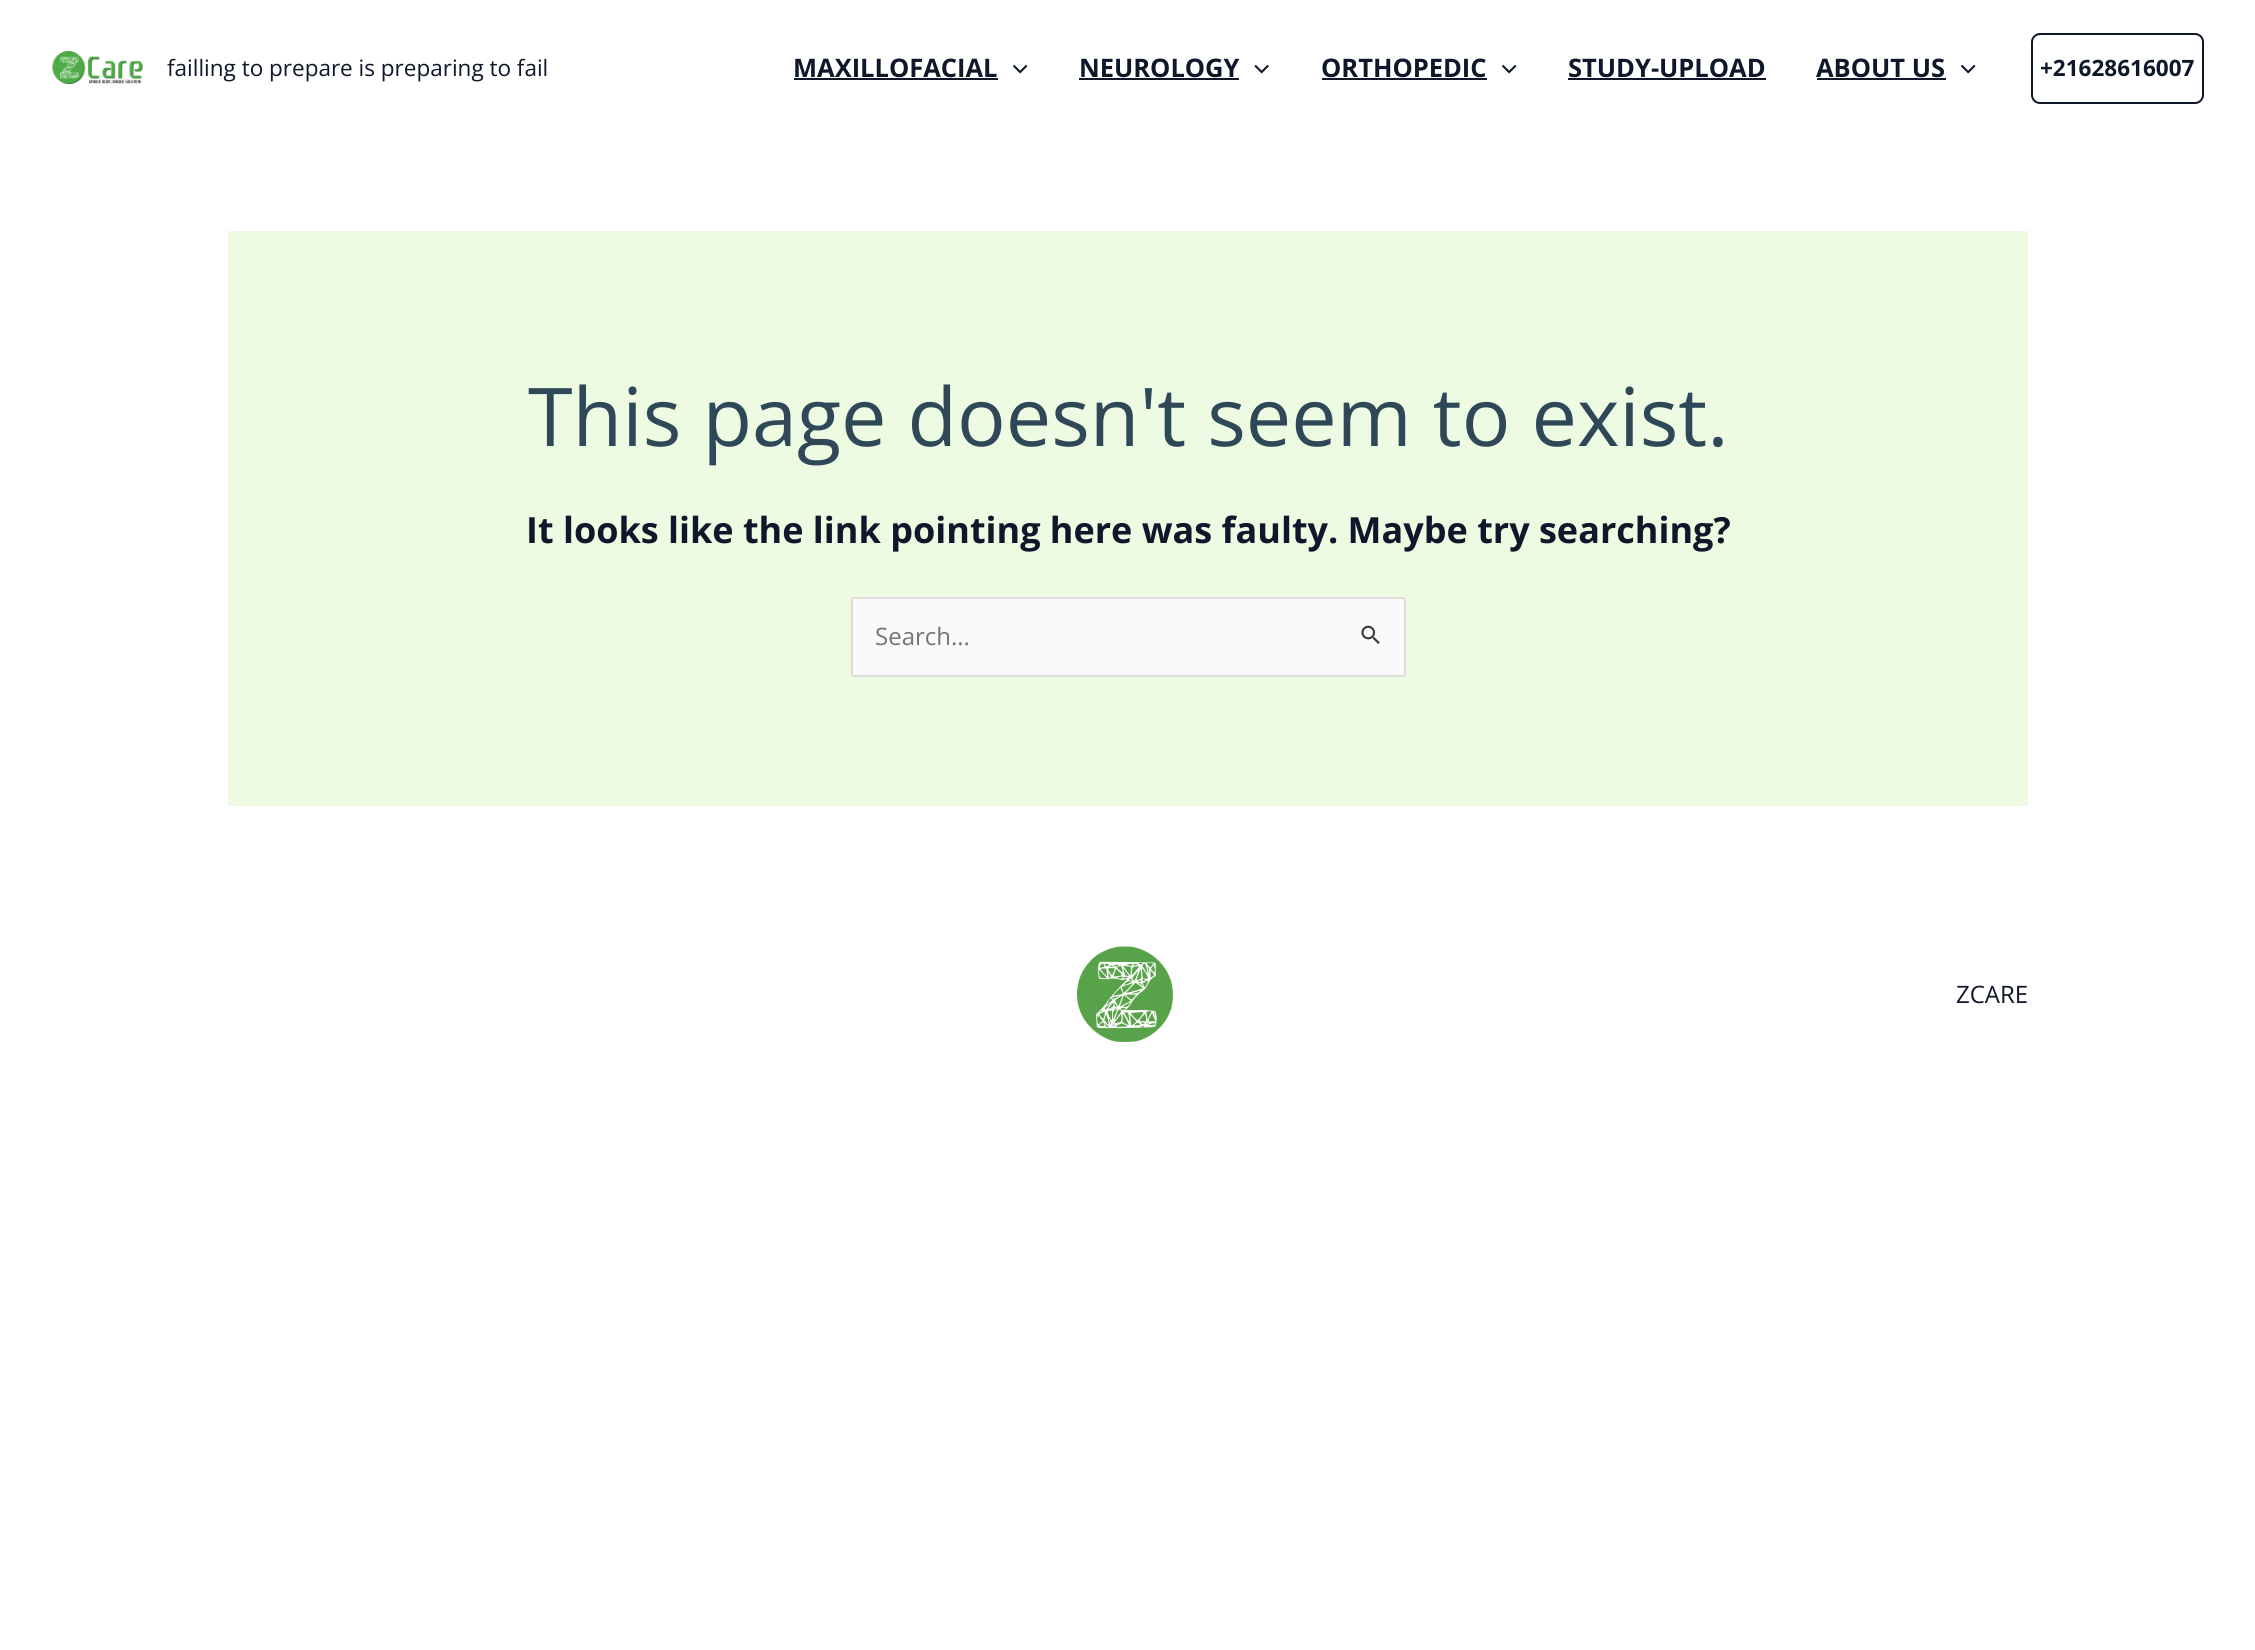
#include <cairo.h>
#include <math.h>
#include <stddef.h>

static cairo_t *ctx;

static void use_color(int r, int g, int b) {
    cairo_set_source_rgb(ctx, r / 255.0, g / 255.0, b / 255.0);
}

static void round_rect(double x, double y, double w, double h, double r) {
    cairo_new_sub_path(ctx);
    cairo_arc(ctx, x + w - r, y + h - r, r, 0, M_PI / 2);
    cairo_arc(ctx, x + r, y + h - r, r, M_PI / 2, M_PI);
    cairo_arc(ctx, x + r, y + r, r, M_PI, 1.5 * M_PI);
    cairo_arc(ctx, x + w - r, y + r, r, 1.5 * M_PI, 2 * M_PI);
    cairo_close_path(ctx);
}

static void picture(const char *path, double x, double y, double w, double h) {
    cairo_surface_t *image = cairo_image_surface_create_from_png(path);
    cairo_save(ctx);
    cairo_set_source_surface(ctx, image, x, y);
    cairo_rectangle(ctx, x, y, w, h);
    cairo_fill(ctx);
    cairo_restore(ctx);
    cairo_surface_destroy(image);
}

int main(void) {
    cairo_surface_t *surface = cairo_image_surface_create(CAIRO_FORMAT_RGB24, 2255, 1650);
    ctx = cairo_create(surface);
    cairo_font_options_t *options = cairo_font_options_create();
    cairo_font_options_set_hint_metrics(options, CAIRO_HINT_METRICS_OFF);
    cairo_font_options_set_hint_style(options, CAIRO_HINT_STYLE_NONE);
    cairo_set_font_options(ctx, options);
    cairo_set_miter_limit(ctx, 4);
    use_color(255, 255, 255);
    cairo_paint(ctx);
    picture("img1.png", 52, 51, 91, 33);
    cairo_select_font_face(ctx, "Open Sans", CAIRO_FONT_SLANT_NORMAL, CAIRO_FONT_WEIGHT_NORMAL);
    cairo_set_font_size(ctx, 22.5);
    use_color(15, 23, 42);
    cairo_move_to(ctx, 167, 76);
    cairo_show_text(ctx, "failling to prepare is preparing to fail");
    cairo_select_font_face(ctx, "Open Sans", CAIRO_FONT_SLANT_NORMAL, CAIRO_FONT_WEIGHT_BOLD);
    cairo_set_font_size(ctx, 25.5);
    cairo_move_to(ctx, 793, 77);
    cairo_show_text(ctx, "MAXILLOFACIAL");
    cairo_rectangle(ctx, 794, 78, 204, 2);
    cairo_fill(ctx);
    picture("img2.png", 1013, 64, 15, 10);
    cairo_move_to(ctx, 1079, 77);
    cairo_show_text(ctx, "NEUROLOGY");
    cairo_rectangle(ctx, 1079, 78, 160, 2);
    cairo_fill(ctx);
    picture("img3.png", 1254, 64, 15, 10);
    cairo_move_to(ctx, 1321, 77);
    cairo_show_text(ctx, "ORTHOPEDIC");
    cairo_rectangle(ctx, 1322, 78, 165, 2);
    cairo_fill(ctx);
    picture("img2.png", 1502, 64, 15, 10);
    cairo_move_to(ctx, 1568, 77);
    cairo_show_text(ctx, "STUDY-UPLOAD");
    cairo_rectangle(ctx, 1568, 78, 198, 2);
    cairo_fill(ctx);
    cairo_move_to(ctx, 1816, 77);
    cairo_show_text(ctx, "ABOUT US");
    cairo_rectangle(ctx, 1817, 78, 129, 2);
    cairo_fill(ctx);
    picture("img2.png", 1961, 64, 15, 10);
    round_rect(2032, 34, 171, 69, 8);
    cairo_stroke(ctx);
    cairo_set_font_size(ctx, 22.5);
    cairo_move_to(ctx, 2040, 76);
    cairo_show_text(ctx, "+21628616007");
    use_color(237, 251, 226);
    cairo_rectangle(ctx, 228, 231, 1800, 575);
    cairo_fill(ctx);
    cairo_select_font_face(ctx, "Open Sans", CAIRO_FONT_SLANT_NORMAL, CAIRO_FONT_WEIGHT_NORMAL);
    cairo_set_font_size(ctx, 81);
    use_color(47, 72, 88);
    cairo_move_to(ctx, 528, 446);
    cairo_show_text(ctx, "This page doesn't seem to exist.");
    cairo_select_font_face(ctx, "Open Sans", CAIRO_FONT_SLANT_NORMAL, CAIRO_FONT_WEIGHT_BOLD);
    cairo_set_font_size(ctx, 36);
    use_color(15, 23, 42);
    cairo_move_to(ctx, 526, 543);
    cairo_show_text(ctx, "It looks like the link pointing here was faulty. Maybe try searching?");
    use_color(250, 250, 250);
    round_rect(852, 598, 553, 78, 2);
    cairo_fill_preserve(ctx);
    use_color(221, 221, 221);
    cairo_stroke(ctx);
    cairo_select_font_face(ctx, "Open Sans", CAIRO_FONT_SLANT_NORMAL, CAIRO_FONT_WEIGHT_NORMAL);
    cairo_set_font_size(ctx, 24);
    use_color(117, 117, 117);
    cairo_move_to(ctx, 875, 645);
    cairo_show_text(ctx, "Search...");
    picture("img4.png", 1361, 625, 19, 19);
    picture("img5.png", 1077, 946, 96, 96);
    use_color(15, 23, 42);
    cairo_move_to(ctx, 1956, 1003);
    cairo_show_text(ctx, "ZCARE");
    cairo_surface_write_to_png(surface, "result.png");
    cairo_font_options_destroy(options);
    cairo_destroy(ctx);
    cairo_surface_destroy(surface);
    return 0;
}
